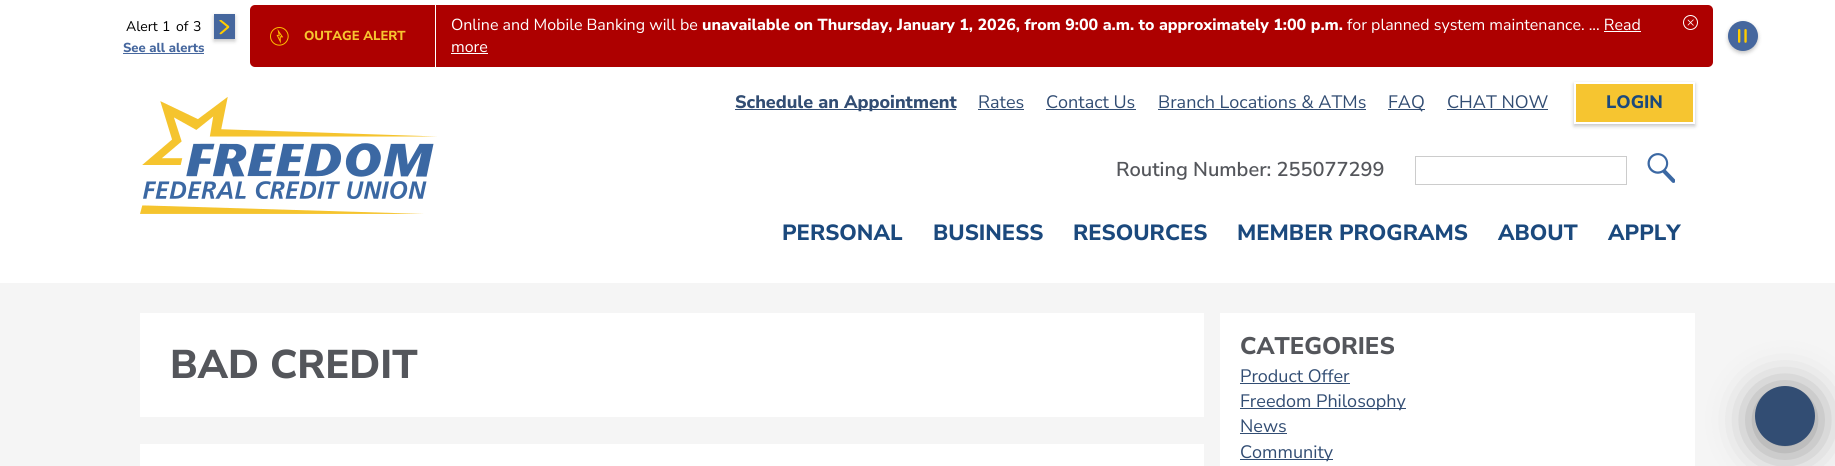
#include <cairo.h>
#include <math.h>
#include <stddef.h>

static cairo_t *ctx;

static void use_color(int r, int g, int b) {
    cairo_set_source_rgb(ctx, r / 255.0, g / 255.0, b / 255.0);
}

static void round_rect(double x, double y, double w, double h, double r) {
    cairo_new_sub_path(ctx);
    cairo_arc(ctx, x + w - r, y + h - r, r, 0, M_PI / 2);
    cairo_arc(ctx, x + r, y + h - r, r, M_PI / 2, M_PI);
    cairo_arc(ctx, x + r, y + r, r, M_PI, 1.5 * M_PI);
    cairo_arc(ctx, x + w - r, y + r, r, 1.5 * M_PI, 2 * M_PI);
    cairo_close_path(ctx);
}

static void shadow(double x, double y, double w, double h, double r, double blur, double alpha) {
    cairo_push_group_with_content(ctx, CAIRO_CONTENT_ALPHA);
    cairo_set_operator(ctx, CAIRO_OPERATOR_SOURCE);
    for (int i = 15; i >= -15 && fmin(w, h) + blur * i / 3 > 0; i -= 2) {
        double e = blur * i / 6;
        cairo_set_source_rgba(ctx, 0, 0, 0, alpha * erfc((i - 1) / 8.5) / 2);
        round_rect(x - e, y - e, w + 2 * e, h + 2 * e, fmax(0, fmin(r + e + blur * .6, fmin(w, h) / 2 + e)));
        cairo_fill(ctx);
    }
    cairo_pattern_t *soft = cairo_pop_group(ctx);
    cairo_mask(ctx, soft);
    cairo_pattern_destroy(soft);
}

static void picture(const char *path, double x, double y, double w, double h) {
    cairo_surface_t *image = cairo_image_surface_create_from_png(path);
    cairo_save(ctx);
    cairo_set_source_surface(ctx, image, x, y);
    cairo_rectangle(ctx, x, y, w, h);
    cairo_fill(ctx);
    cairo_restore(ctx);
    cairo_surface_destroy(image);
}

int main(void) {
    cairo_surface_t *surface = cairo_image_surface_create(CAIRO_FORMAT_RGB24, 1835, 466);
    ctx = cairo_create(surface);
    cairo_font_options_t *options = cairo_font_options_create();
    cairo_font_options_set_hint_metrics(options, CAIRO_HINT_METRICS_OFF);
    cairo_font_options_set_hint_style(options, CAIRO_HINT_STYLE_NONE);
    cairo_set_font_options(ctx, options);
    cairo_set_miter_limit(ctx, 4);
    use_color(255, 255, 255);
    cairo_paint(ctx);
    cairo_select_font_face(ctx, "Nunito Sans", CAIRO_FONT_SLANT_NORMAL, CAIRO_FONT_WEIGHT_NORMAL);
    cairo_set_font_size(ctx, 14);
    use_color(0, 0, 0);
    cairo_move_to(ctx, 126, 31);
    cairo_show_text(ctx, "Alert");
    cairo_move_to(ctx, 162, 31);
    cairo_show_text(ctx, "1");
    cairo_move_to(ctx, 176, 31);
    cairo_show_text(ctx, "of");
    cairo_move_to(ctx, 193, 31);
    cairo_show_text(ctx, "3");
    use_color(55, 55, 55);
    shadow(214, 16, 21, 25, 0, 2, 0.3);
    use_color(70, 103, 158);
    cairo_rectangle(ctx, 214, 14, 21, 25);
    cairo_fill(ctx);
    picture("img1.png", 219, 20, 11, 15);
    cairo_select_font_face(ctx, "Nunito Sans ExtraBold", CAIRO_FONT_SLANT_NORMAL, CAIRO_FONT_WEIGHT_NORMAL);
    cairo_set_font_size(ctx, 13);
    cairo_move_to(ctx, 123, 52);
    cairo_show_text(ctx, "See all alerts");
    cairo_rectangle(ctx, 123, 53, 81, 1);
    cairo_fill(ctx);
    use_color(173, 0, 0);
    round_rect(250, 5, 1463, 62, 5);
    cairo_fill(ctx);
    use_color(255, 255, 255);
    cairo_rectangle(ctx, 435, 5, 1, 62);
    cairo_fill(ctx);
    picture("img2.png", 270, 27, 19, 19);
    use_color(246, 197, 48);
    cairo_move_to(ctx, 304, 40);
    cairo_show_text(ctx, "OUTAGE ALERT");
    cairo_select_font_face(ctx, "Nunito Sans", CAIRO_FONT_SLANT_NORMAL, CAIRO_FONT_WEIGHT_NORMAL);
    cairo_set_font_size(ctx, 16);
    use_color(255, 255, 255);
    cairo_move_to(ctx, 451, 30);
    cairo_show_text(ctx, "Online and Mobile Banking will be");
    cairo_select_font_face(ctx, "Nunito Sans ExtraBold", CAIRO_FONT_SLANT_NORMAL, CAIRO_FONT_WEIGHT_NORMAL);
    cairo_move_to(ctx, 702, 30);
    cairo_show_text(ctx, "unavailable on Thursday, January 1, 2026, from 9:00 a.m. to approximately 1:00 p.m.");
    cairo_select_font_face(ctx, "Nunito Sans", CAIRO_FONT_SLANT_NORMAL, CAIRO_FONT_WEIGHT_NORMAL);
    cairo_move_to(ctx, 1347, 30);
    cairo_show_text(ctx, "for planned system maintenance. ... Read");
    cairo_move_to(ctx, 451, 52);
    cairo_show_text(ctx, "more");
    cairo_rectangle(ctx, 1604, 31, 37, 1);
    cairo_fill(ctx);
    cairo_rectangle(ctx, 451, 53, 37, 1);
    cairo_fill(ctx);
    picture("img3.png", 1683, 15, 15, 15);
    use_color(55, 55, 55);
    shadow(1728, 23, 30, 30, 15, 2, 0.3);
    use_color(70, 103, 158);
    cairo_arc(ctx, 1743, 36, 15, 0, 2 * M_PI);
    cairo_fill(ctx);
    picture("img4.png", 1738, 29, 9, 14);
    picture("img5.png", 140, 97, 297, 117);
    use_color(50, 77, 115);
    cairo_rectangle(ctx, 735, 109, 221, 1);
    cairo_fill(ctx);
    cairo_select_font_face(ctx, "Nunito Sans ExtraBold", CAIRO_FONT_SLANT_NORMAL, CAIRO_FONT_WEIGHT_NORMAL);
    cairo_set_font_size(ctx, 18);
    cairo_move_to(ctx, 735, 108);
    cairo_show_text(ctx, "Schedule an Appointment");
    cairo_select_font_face(ctx, "Nunito Sans", CAIRO_FONT_SLANT_NORMAL, CAIRO_FONT_WEIGHT_NORMAL);
    cairo_move_to(ctx, 978, 108);
    cairo_show_text(ctx, "Rates");
    cairo_rectangle(ctx, 978, 109, 46, 1);
    cairo_fill(ctx);
    cairo_move_to(ctx, 1046, 108);
    cairo_show_text(ctx, "Contact Us");
    cairo_rectangle(ctx, 1046, 109, 90, 1);
    cairo_fill(ctx);
    cairo_move_to(ctx, 1158, 108);
    cairo_show_text(ctx, "Branch Locations & ATMs");
    cairo_rectangle(ctx, 1158, 109, 208, 1);
    cairo_fill(ctx);
    cairo_rectangle(ctx, 1388, 109, 37, 1);
    cairo_fill(ctx);
    cairo_move_to(ctx, 1388, 108);
    cairo_show_text(ctx, "FAQ");
    cairo_move_to(ctx, 1447, 108);
    cairo_show_text(ctx, "CHAT NOW");
    cairo_rectangle(ctx, 1447, 109, 101, 1);
    cairo_fill(ctx);
    use_color(55, 55, 55);
    shadow(1574, 84, 121, 42, 0, 2, 0.3);
    use_color(246, 197, 48);
    cairo_rectangle(ctx, 1575, 83, 119, 40);
    cairo_fill_preserve(ctx);
    use_color(255, 255, 255);
    cairo_stroke(ctx);
    cairo_select_font_face(ctx, "Nunito Sans ExtraBold", CAIRO_FONT_SLANT_NORMAL, CAIRO_FONT_WEIGHT_NORMAL);
    use_color(27, 73, 125);
    cairo_move_to(ctx, 1606, 108);
    cairo_show_text(ctx, "LOGIN");
    cairo_select_font_face(ctx, "Nunito Sans SemiBold", CAIRO_FONT_SLANT_NORMAL, CAIRO_FONT_WEIGHT_NORMAL);
    cairo_set_font_size(ctx, 20);
    use_color(84, 86, 91);
    cairo_move_to(ctx, 1116, 176);
    cairo_show_text(ctx, "Routing Number: 255077299");
    cairo_rectangle(ctx, 1415.5, 156.5, 211, 28);
    use_color(204, 204, 204);
    cairo_set_line_width(ctx, 1);
    cairo_stroke(ctx);
    picture("img6.png", 1647, 153, 28, 30);
    cairo_select_font_face(ctx, "Nunito Sans ExtraBold", CAIRO_FONT_SLANT_NORMAL, CAIRO_FONT_WEIGHT_NORMAL);
    cairo_set_font_size(ctx, 22);
    use_color(27, 73, 125);
    cairo_move_to(ctx, 782, 240);
    cairo_show_text(ctx, "PERSONAL");
    cairo_move_to(ctx, 933, 240);
    cairo_show_text(ctx, "BUSINESS");
    cairo_move_to(ctx, 1073, 240);
    cairo_show_text(ctx, "RESOURCES");
    cairo_move_to(ctx, 1237, 240);
    cairo_show_text(ctx, "MEMBER PROGRAMS");
    cairo_move_to(ctx, 1498, 240);
    cairo_show_text(ctx, "ABOUT");
    cairo_move_to(ctx, 1608, 240);
    cairo_show_text(ctx, "APPLY");
    use_color(245, 245, 245);
    cairo_rectangle(ctx, 0, 283, 1835, 183);
    cairo_fill(ctx);
    use_color(255, 255, 255);
    cairo_rectangle(ctx, 140, 313, 1064, 104);
    cairo_fill(ctx);
    cairo_set_font_size(ctx, 40);
    use_color(84, 86, 91);
    cairo_move_to(ctx, 170, 378);
    cairo_show_text(ctx, "BAD CREDIT");
    use_color(255, 255, 255);
    cairo_rectangle(ctx, 140, 444, 1064, 22);
    cairo_fill(ctx);
    cairo_rectangle(ctx, 1220, 313, 475, 153);
    cairo_fill(ctx);
    cairo_set_font_size(ctx, 24);
    use_color(84, 86, 91);
    cairo_move_to(ctx, 1240, 354);
    cairo_show_text(ctx, "CATEGORIES");
    cairo_select_font_face(ctx, "Nunito Sans", CAIRO_FONT_SLANT_NORMAL, CAIRO_FONT_WEIGHT_NORMAL);
    cairo_set_font_size(ctx, 18);
    use_color(50, 77, 115);
    cairo_move_to(ctx, 1240, 382);
    cairo_show_text(ctx, "Product Offer");
    cairo_rectangle(ctx, 1240, 383, 110, 1);
    cairo_fill(ctx);
    cairo_rectangle(ctx, 1240, 408, 166, 1);
    cairo_fill(ctx);
    cairo_move_to(ctx, 1240, 407);
    cairo_show_text(ctx, "Freedom Philosophy");
    cairo_move_to(ctx, 1240, 432);
    cairo_show_text(ctx, "News");
    cairo_rectangle(ctx, 1240, 433, 47, 1);
    cairo_fill(ctx);
    cairo_rectangle(ctx, 1240, 459, 93, 1);
    cairo_fill(ctx);
    cairo_move_to(ctx, 1240, 458);
    cairo_show_text(ctx, "Community");
    use_color(0, 0, 0);
    shadow(1755, 390, 60, 60, 30, 20, 0.46);
    use_color(50, 77, 115);
    cairo_arc(ctx, 1785, 416, 30, 0, 2 * M_PI);
    cairo_fill(ctx);
    cairo_surface_write_to_png(surface, "result.png");
    cairo_font_options_destroy(options);
    cairo_destroy(ctx);
    cairo_surface_destroy(surface);
    return 0;
}
